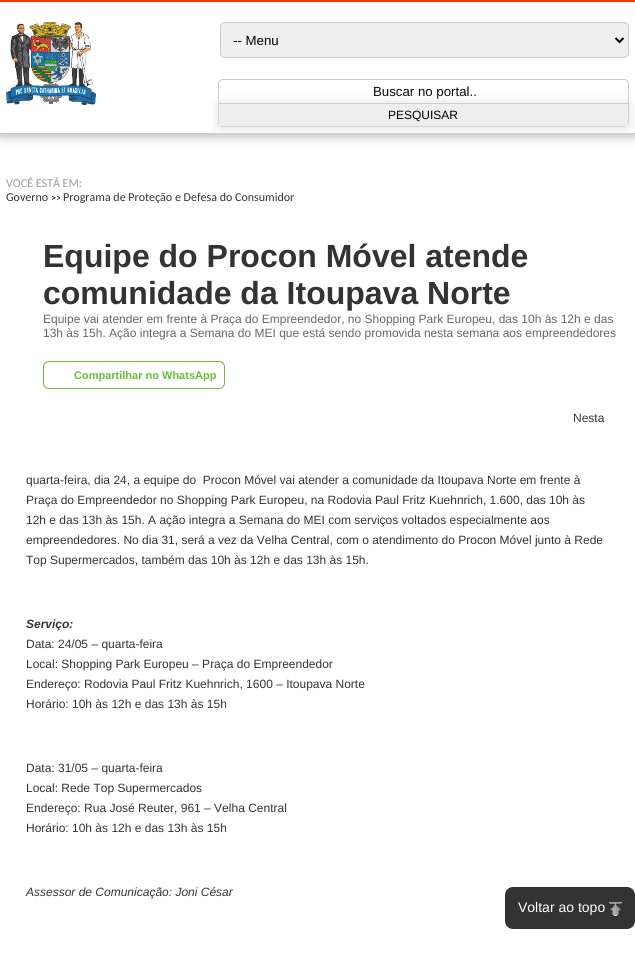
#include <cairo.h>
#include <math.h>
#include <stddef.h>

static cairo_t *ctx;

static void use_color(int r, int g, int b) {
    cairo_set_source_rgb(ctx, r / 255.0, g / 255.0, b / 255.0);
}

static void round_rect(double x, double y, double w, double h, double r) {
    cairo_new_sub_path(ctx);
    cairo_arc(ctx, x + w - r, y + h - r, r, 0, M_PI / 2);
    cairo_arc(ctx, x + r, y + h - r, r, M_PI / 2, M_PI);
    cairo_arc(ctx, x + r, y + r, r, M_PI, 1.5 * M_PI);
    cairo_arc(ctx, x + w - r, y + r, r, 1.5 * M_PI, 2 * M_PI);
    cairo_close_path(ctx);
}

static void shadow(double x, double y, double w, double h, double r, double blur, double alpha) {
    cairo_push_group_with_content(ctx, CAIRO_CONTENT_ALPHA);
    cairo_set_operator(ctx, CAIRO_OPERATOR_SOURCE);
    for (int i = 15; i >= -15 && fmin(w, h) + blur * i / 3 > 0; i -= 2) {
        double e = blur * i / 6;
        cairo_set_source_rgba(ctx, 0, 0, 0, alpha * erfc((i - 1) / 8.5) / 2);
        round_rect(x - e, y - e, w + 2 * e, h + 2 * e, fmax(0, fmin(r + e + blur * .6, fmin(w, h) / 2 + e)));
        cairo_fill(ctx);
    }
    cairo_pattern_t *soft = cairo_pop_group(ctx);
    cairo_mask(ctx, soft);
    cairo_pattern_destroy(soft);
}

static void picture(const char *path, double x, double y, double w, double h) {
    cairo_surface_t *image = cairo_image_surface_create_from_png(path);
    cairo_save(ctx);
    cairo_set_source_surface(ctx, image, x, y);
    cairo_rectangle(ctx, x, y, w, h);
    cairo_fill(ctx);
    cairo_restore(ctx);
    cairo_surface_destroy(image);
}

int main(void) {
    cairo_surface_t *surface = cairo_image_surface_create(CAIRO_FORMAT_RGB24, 635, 978);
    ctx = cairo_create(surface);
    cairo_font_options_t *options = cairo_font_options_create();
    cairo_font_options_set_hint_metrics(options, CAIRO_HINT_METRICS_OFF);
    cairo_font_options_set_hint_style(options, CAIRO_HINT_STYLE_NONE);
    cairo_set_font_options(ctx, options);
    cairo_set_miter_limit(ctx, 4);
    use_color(255, 255, 255);
    cairo_paint(ctx);
    cairo_save(ctx);
    cairo_rectangle(ctx, 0, 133, 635, 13);
    cairo_clip(ctx);
    use_color(153, 153, 153);
    shadow(0, 1, 635, 133, 0, 6, 1);
    cairo_restore(ctx);
    use_color(255, 51, 0);
    cairo_rectangle(ctx, 0, 0, 635, 2);
    cairo_fill(ctx);
    picture("img1.png", 6, 22, 90, 83);
    use_color(239, 239, 239);
    round_rect(220.5, 22.5, 408, 35, 4.5);
    cairo_fill_preserve(ctx);
    use_color(204, 204, 204);
    cairo_set_line_width(ctx, 1);
    cairo_stroke(ctx);
    cairo_new_path(ctx);
    cairo_move_to(ctx, 615.5, 38);
    cairo_line_to(ctx, 619.5, 42);
    cairo_line_to(ctx, 623.5, 38);
    use_color(0, 0, 0);
    cairo_set_line_width(ctx, 2);
    cairo_stroke(ctx);
    cairo_select_font_face(ctx, "Liberation Sans", CAIRO_FONT_SLANT_NORMAL, CAIRO_FONT_WEIGHT_NORMAL);
    cairo_set_font_size(ctx, 13.25);
    cairo_move_to(ctx, 233, 45);
    cairo_show_text(ctx, "-- Menu");
    round_rect(218.5, 79.5, 410, 47, 4.5);
    use_color(204, 204, 204);
    cairo_set_line_width(ctx, 1);
    cairo_stroke(ctx);
    use_color(0, 0, 0);
    cairo_move_to(ctx, 373, 96);
    cairo_show_text(ctx, "Buscar no portal..");
    use_color(221, 221, 221);
    shadow(219, 104, 409, 23, 0, 6, 1);
    use_color(238, 238, 238);
    cairo_rectangle(ctx, 219, 104, 409, 22);
    cairo_fill(ctx);
    use_color(204, 204, 204);
    cairo_rectangle(ctx, 219, 103, 409, 1);
    cairo_fill(ctx);
    cairo_set_font_size(ctx, 12);
    use_color(0, 0, 0);
    cairo_move_to(ctx, 388, 119);
    cairo_show_text(ctx, "PESQUISAR");
    cairo_select_font_face(ctx, "Carlito", CAIRO_FONT_SLANT_NORMAL, CAIRO_FONT_WEIGHT_NORMAL);
    use_color(153, 153, 153);
    cairo_move_to(ctx, 6, 187);
    cairo_show_text(ctx, "VOCÊ ESTÁ EM:");
    use_color(51, 51, 51);
    cairo_move_to(ctx, 6, 201);
    cairo_show_text(ctx, "Governo");
    cairo_set_font_size(ctx, 10);
    use_color(0, 0, 0);
    cairo_move_to(ctx, 51, 201);
    cairo_show_text(ctx, ">>");
    cairo_set_font_size(ctx, 12);
    use_color(51, 51, 51);
    cairo_move_to(ctx, 63, 201);
    cairo_show_text(ctx, "Programa de Proteção e Defesa do Consumidor");
    cairo_select_font_face(ctx, "Liberation Sans", CAIRO_FONT_SLANT_NORMAL, CAIRO_FONT_WEIGHT_BOLD);
    cairo_set_font_size(ctx, 32);
    cairo_move_to(ctx, 43, 267);
    cairo_show_text(ctx, "Equipe do Procon Móvel atende");
    cairo_move_to(ctx, 43, 304);
    cairo_show_text(ctx, "comunidade da Itoupava Norte");
    cairo_select_font_face(ctx, "Liberation Sans", CAIRO_FONT_SLANT_NORMAL, CAIRO_FONT_WEIGHT_NORMAL);
    cairo_set_font_size(ctx, 12);
    use_color(102, 102, 102);
    cairo_move_to(ctx, 43, 323);
    cairo_show_text(ctx, "Equipe vai atender em frente à Praça do Empreendedor, no Shopping Park Europeu, das 10h às 12h e das");
    cairo_move_to(ctx, 43, 337);
    cairo_show_text(ctx, "13h às 15h. Ação integra a Semana do MEI que está sendo promovida nesta semana aos empreendedores");
    round_rect(43.5, 361.5, 181, 27, 5.5);
    use_color(105, 188, 54);
    cairo_stroke(ctx);
    cairo_select_font_face(ctx, "Liberation Sans", CAIRO_FONT_SLANT_NORMAL, CAIRO_FONT_WEIGHT_BOLD);
    cairo_set_font_size(ctx, 11);
    cairo_move_to(ctx, 74, 379);
    cairo_show_text(ctx, "Compartilhar no WhatsApp");
    cairo_select_font_face(ctx, "Liberation Sans", CAIRO_FONT_SLANT_NORMAL, CAIRO_FONT_WEIGHT_NORMAL);
    cairo_set_font_size(ctx, 12);
    use_color(51, 51, 51);
    cairo_move_to(ctx, 573, 422);
    cairo_show_text(ctx, "Nesta");
    cairo_move_to(ctx, 26, 484);
    cairo_show_text(ctx, "quarta-feira, dia 24, a equipe do  Procon Móvel vai atender a comunidade da Itoupava Norte em frente à");
    cairo_move_to(ctx, 26, 504);
    cairo_show_text(ctx, "Praça do Empreendedor no Shopping Park Europeu, na Rodovia Paul Fritz Kuehnrich, 1.600, das 10h às");
    cairo_move_to(ctx, 26, 524);
    cairo_show_text(ctx, "12h e das 13h às 15h. A ação integra a Semana do MEI com serviços voltados especialmente aos");
    cairo_move_to(ctx, 26, 544);
    cairo_show_text(ctx, "empreendedores. No dia 31, será a vez da Velha Central, com o atendimento do Procon Móvel junto à Rede");
    cairo_move_to(ctx, 26, 564);
    cairo_show_text(ctx, "Top Supermercados, também das 10h às 12h e das 13h às 15h.");
    cairo_select_font_face(ctx, "Liberation Sans", CAIRO_FONT_SLANT_ITALIC, CAIRO_FONT_WEIGHT_BOLD);
    cairo_move_to(ctx, 26, 628);
    cairo_show_text(ctx, "Serviço:");
    cairo_select_font_face(ctx, "Liberation Sans", CAIRO_FONT_SLANT_NORMAL, CAIRO_FONT_WEIGHT_NORMAL);
    cairo_move_to(ctx, 26, 648);
    cairo_show_text(ctx, "Data: 24/05 – quarta-feira");
    cairo_move_to(ctx, 26, 668);
    cairo_show_text(ctx, "Local: Shopping Park Europeu – Praça do Empreendedor");
    cairo_move_to(ctx, 26, 688);
    cairo_show_text(ctx, "Endereço: Rodovia Paul Fritz Kuehnrich, 1600 – Itoupava Norte");
    cairo_move_to(ctx, 26, 708);
    cairo_show_text(ctx, "Horário: 10h às 12h e das 13h às 15h");
    cairo_move_to(ctx, 26, 772);
    cairo_show_text(ctx, "Data: 31/05 – quarta-feira");
    cairo_move_to(ctx, 26, 792);
    cairo_show_text(ctx, "Local: Rede Top Supermercados");
    cairo_move_to(ctx, 26, 812);
    cairo_show_text(ctx, "Endereço: Rua José Reuter, 961 – Velha Central");
    cairo_move_to(ctx, 26, 832);
    cairo_show_text(ctx, "Horário: 10h às 12h e das 13h às 15h");
    cairo_select_font_face(ctx, "Liberation Sans", CAIRO_FONT_SLANT_ITALIC, CAIRO_FONT_WEIGHT_NORMAL);
    cairo_move_to(ctx, 26, 896);
    cairo_show_text(ctx, "Assessor de Comunicação: Joni César");
    round_rect(505, 887, 130, 42, 8);
    cairo_fill(ctx);
    cairo_select_font_face(ctx, "Liberation Sans", CAIRO_FONT_SLANT_NORMAL, CAIRO_FONT_WEIGHT_NORMAL);
    cairo_set_font_size(ctx, 14);
    use_color(255, 255, 255);
    cairo_move_to(ctx, 518, 912);
    cairo_show_text(ctx, "Voltar ao topo");
    picture("img2.png", 609, 902, 13, 14);
    cairo_surface_write_to_png(surface, "result.png");
    cairo_font_options_destroy(options);
    cairo_destroy(ctx);
    cairo_surface_destroy(surface);
    return 0;
}
